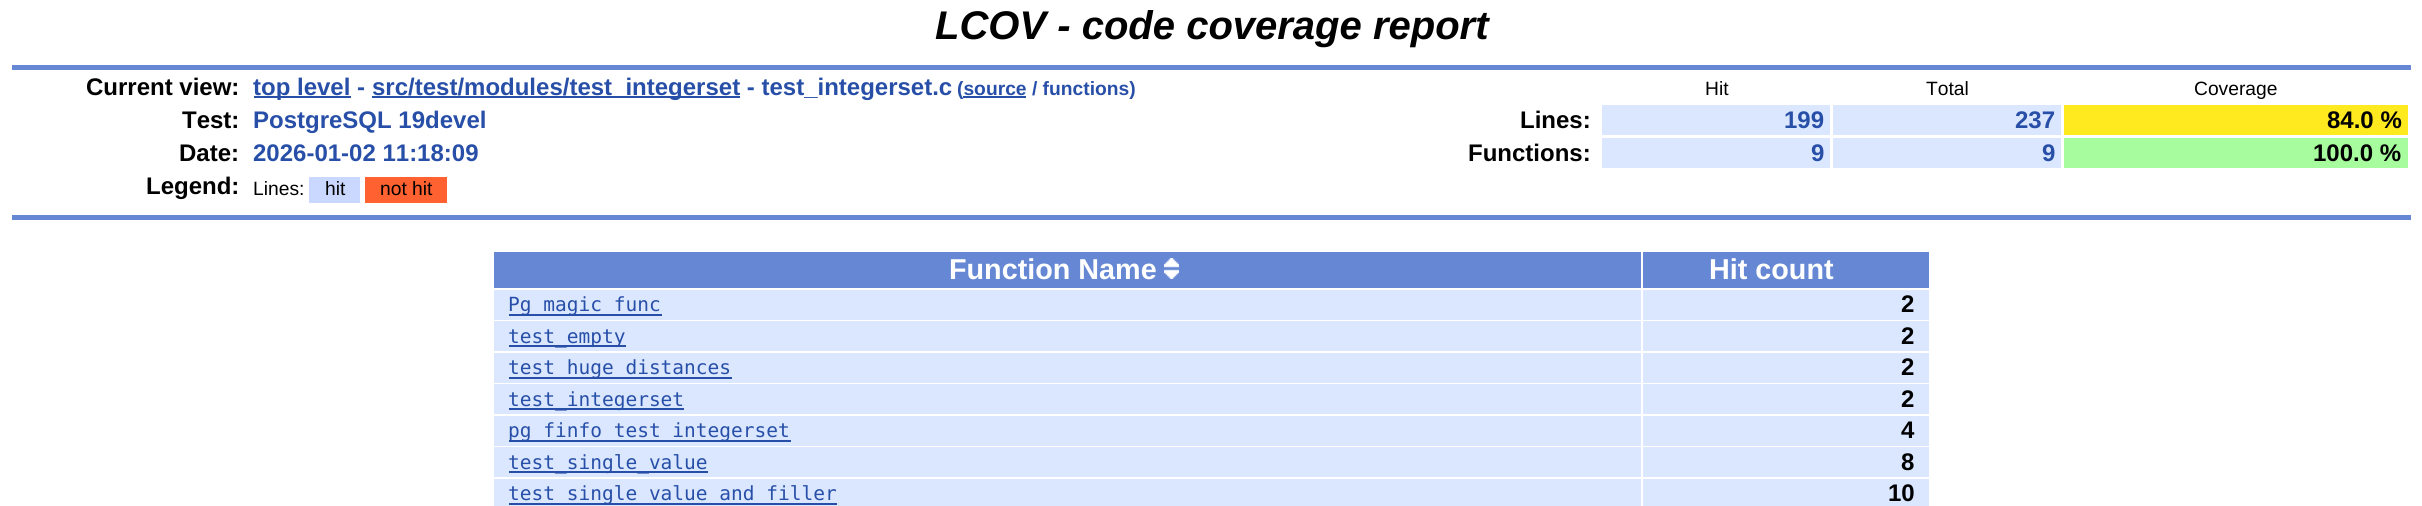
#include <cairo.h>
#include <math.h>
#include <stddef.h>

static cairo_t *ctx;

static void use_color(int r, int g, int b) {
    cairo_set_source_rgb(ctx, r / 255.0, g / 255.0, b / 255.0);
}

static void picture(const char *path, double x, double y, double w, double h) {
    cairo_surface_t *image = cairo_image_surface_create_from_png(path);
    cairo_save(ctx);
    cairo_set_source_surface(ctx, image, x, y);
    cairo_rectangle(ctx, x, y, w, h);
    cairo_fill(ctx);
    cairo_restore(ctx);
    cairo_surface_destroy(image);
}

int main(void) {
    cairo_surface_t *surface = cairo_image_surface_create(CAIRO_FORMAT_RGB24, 2422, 506);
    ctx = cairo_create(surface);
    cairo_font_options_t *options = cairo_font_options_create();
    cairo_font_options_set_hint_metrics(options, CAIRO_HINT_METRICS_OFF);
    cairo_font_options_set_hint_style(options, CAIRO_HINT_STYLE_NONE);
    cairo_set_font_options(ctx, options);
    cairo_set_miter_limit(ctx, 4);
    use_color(255, 255, 255);
    cairo_paint(ctx);
    cairo_select_font_face(ctx, "Liberation Sans", CAIRO_FONT_SLANT_ITALIC, CAIRO_FONT_WEIGHT_BOLD);
    cairo_set_font_size(ctx, 40);
    use_color(0, 0, 0);
    cairo_move_to(ctx, 935, 39);
    cairo_show_text(ctx, "LCOV - code coverage report");
    use_color(102, 136, 212);
    cairo_rectangle(ctx, 12, 65, 2399, 5);
    cairo_fill(ctx);
    cairo_select_font_face(ctx, "Liberation Sans", CAIRO_FONT_SLANT_NORMAL, CAIRO_FONT_WEIGHT_BOLD);
    cairo_set_font_size(ctx, 24);
    use_color(0, 0, 0);
    cairo_move_to(ctx, 86, 95);
    cairo_show_text(ctx, "Current view:");
    use_color(40, 79, 168);
    cairo_rectangle(ctx, 254, 96, 97, 2);
    cairo_fill(ctx);
    cairo_move_to(ctx, 253, 95);
    cairo_show_text(ctx, "top level -");
    cairo_rectangle(ctx, 372, 96, 368, 2);
    cairo_fill(ctx);
    cairo_move_to(ctx, 372, 95);
    cairo_show_text(ctx, "src/test/modules/test_integerset - test_integerset.c");
    cairo_set_font_size(ctx, 19.25);
    cairo_move_to(ctx, 957, 95);
    cairo_show_text(ctx, "(source / functions)");
    cairo_rectangle(ctx, 963, 96, 63, 2);
    cairo_fill(ctx);
    cairo_select_font_face(ctx, "Liberation Sans", CAIRO_FONT_SLANT_NORMAL, CAIRO_FONT_WEIGHT_NORMAL);
    use_color(0, 0, 0);
    cairo_move_to(ctx, 1705, 95);
    cairo_show_text(ctx, "Hit");
    cairo_move_to(ctx, 1926, 95);
    cairo_show_text(ctx, "Total");
    cairo_move_to(ctx, 2194, 95);
    cairo_show_text(ctx, "Coverage");
    cairo_select_font_face(ctx, "Liberation Sans", CAIRO_FONT_SLANT_NORMAL, CAIRO_FONT_WEIGHT_BOLD);
    cairo_set_font_size(ctx, 24);
    cairo_move_to(ctx, 182, 128);
    cairo_show_text(ctx, "Test:");
    use_color(40, 79, 168);
    cairo_move_to(ctx, 253, 128);
    cairo_show_text(ctx, "PostgreSQL 19devel");
    use_color(0, 0, 0);
    cairo_move_to(ctx, 1520, 128);
    cairo_show_text(ctx, "Lines:");
    use_color(218, 231, 254);
    cairo_rectangle(ctx, 1602, 105, 228, 30);
    cairo_fill(ctx);
    use_color(40, 79, 168);
    cairo_move_to(ctx, 1784, 128);
    cairo_show_text(ctx, "199");
    use_color(218, 231, 254);
    cairo_rectangle(ctx, 1833, 105, 228, 30);
    cairo_fill(ctx);
    use_color(40, 79, 168);
    cairo_move_to(ctx, 2015, 128);
    cairo_show_text(ctx, "237");
    use_color(255, 234, 32);
    cairo_rectangle(ctx, 2064, 105, 344, 30);
    cairo_fill(ctx);
    use_color(0, 0, 0);
    cairo_move_to(ctx, 2327, 128);
    cairo_show_text(ctx, "84.0 %");
    cairo_move_to(ctx, 179, 161);
    cairo_show_text(ctx, "Date:");
    use_color(40, 79, 168);
    cairo_move_to(ctx, 253, 161);
    cairo_show_text(ctx, "2026-01-02 11:18:09");
    use_color(0, 0, 0);
    cairo_move_to(ctx, 1468, 161);
    cairo_show_text(ctx, "Functions:");
    use_color(218, 231, 254);
    cairo_rectangle(ctx, 1602, 138, 228, 30);
    cairo_fill(ctx);
    use_color(40, 79, 168);
    cairo_move_to(ctx, 1811, 161);
    cairo_show_text(ctx, "9");
    use_color(218, 231, 254);
    cairo_rectangle(ctx, 1833, 138, 228, 30);
    cairo_fill(ctx);
    use_color(40, 79, 168);
    cairo_move_to(ctx, 2042, 161);
    cairo_show_text(ctx, "9");
    use_color(167, 252, 157);
    cairo_rectangle(ctx, 2064, 138, 344, 30);
    cairo_fill(ctx);
    use_color(0, 0, 0);
    cairo_move_to(ctx, 2313, 161);
    cairo_show_text(ctx, "100.0 %");
    cairo_move_to(ctx, 146, 194);
    cairo_show_text(ctx, "Legend:");
    cairo_select_font_face(ctx, "Liberation Sans", CAIRO_FONT_SLANT_NORMAL, CAIRO_FONT_WEIGHT_NORMAL);
    cairo_set_font_size(ctx, 19.25);
    cairo_move_to(ctx, 253, 195);
    cairo_show_text(ctx, "Lines:");
    use_color(202, 215, 254);
    cairo_rectangle(ctx, 309, 177, 51, 26);
    cairo_fill(ctx);
    use_color(0, 0, 0);
    cairo_move_to(ctx, 325, 195);
    cairo_show_text(ctx, "hit");
    use_color(255, 98, 48);
    cairo_rectangle(ctx, 365, 177, 82, 26);
    cairo_fill(ctx);
    use_color(0, 0, 0);
    cairo_move_to(ctx, 380, 195);
    cairo_show_text(ctx, "not hit");
    use_color(102, 136, 212);
    cairo_rectangle(ctx, 12, 215, 2399, 5);
    cairo_fill(ctx);
    cairo_rectangle(ctx, 494, 252, 1147, 36);
    cairo_fill(ctx);
    cairo_select_font_face(ctx, "Liberation Sans", CAIRO_FONT_SLANT_NORMAL, CAIRO_FONT_WEIGHT_BOLD);
    cairo_set_font_size(ctx, 28.75);
    use_color(255, 255, 255);
    cairo_move_to(ctx, 949, 279);
    cairo_show_text(ctx, "Function Name");
    picture("img1.png", 1164, 258, 15, 21);
    use_color(102, 136, 212);
    cairo_rectangle(ctx, 1643, 252, 286, 36);
    cairo_fill(ctx);
    use_color(255, 255, 255);
    cairo_move_to(ctx, 1709, 279);
    cairo_show_text(ctx, "Hit count");
    use_color(218, 231, 254);
    cairo_rectangle(ctx, 494, 290, 1147, 30);
    cairo_fill(ctx);
    use_color(40, 79, 168);
    cairo_rectangle(ctx, 509, 314, 153, 2);
    cairo_fill(ctx);
    cairo_select_font_face(ctx, "DejaVu Sans Mono", CAIRO_FONT_SLANT_NORMAL, CAIRO_FONT_WEIGHT_NORMAL);
    cairo_set_font_size(ctx, 19.5);
    cairo_move_to(ctx, 508, 311);
    cairo_show_text(ctx, "Pg_magic_func");
    use_color(218, 231, 254);
    cairo_rectangle(ctx, 1643, 290, 286, 30);
    cairo_fill(ctx);
    cairo_select_font_face(ctx, "Liberation Sans", CAIRO_FONT_SLANT_NORMAL, CAIRO_FONT_WEIGHT_BOLD);
    cairo_set_font_size(ctx, 24);
    use_color(0, 0, 0);
    cairo_move_to(ctx, 1901, 312);
    cairo_show_text(ctx, "2");
    use_color(218, 231, 254);
    cairo_rectangle(ctx, 494, 321, 1147, 30);
    cairo_fill(ctx);
    use_color(40, 79, 168);
    cairo_rectangle(ctx, 509, 345, 117, 2);
    cairo_fill(ctx);
    cairo_select_font_face(ctx, "DejaVu Sans Mono", CAIRO_FONT_SLANT_NORMAL, CAIRO_FONT_WEIGHT_NORMAL);
    cairo_set_font_size(ctx, 19.5);
    cairo_move_to(ctx, 508, 343);
    cairo_show_text(ctx, "test_empty");
    use_color(218, 231, 254);
    cairo_rectangle(ctx, 1643, 321, 286, 30);
    cairo_fill(ctx);
    cairo_select_font_face(ctx, "Liberation Sans", CAIRO_FONT_SLANT_NORMAL, CAIRO_FONT_WEIGHT_BOLD);
    cairo_set_font_size(ctx, 24);
    use_color(0, 0, 0);
    cairo_move_to(ctx, 1901, 344);
    cairo_show_text(ctx, "2");
    use_color(218, 231, 254);
    cairo_rectangle(ctx, 494, 353, 1147, 30);
    cairo_fill(ctx);
    use_color(40, 79, 168);
    cairo_rectangle(ctx, 509, 377, 223, 2);
    cairo_fill(ctx);
    cairo_select_font_face(ctx, "DejaVu Sans Mono", CAIRO_FONT_SLANT_NORMAL, CAIRO_FONT_WEIGHT_NORMAL);
    cairo_set_font_size(ctx, 19.5);
    cairo_move_to(ctx, 508, 374);
    cairo_show_text(ctx, "test_huge_distances");
    use_color(218, 231, 254);
    cairo_rectangle(ctx, 1643, 353, 286, 30);
    cairo_fill(ctx);
    cairo_select_font_face(ctx, "Liberation Sans", CAIRO_FONT_SLANT_NORMAL, CAIRO_FONT_WEIGHT_BOLD);
    cairo_set_font_size(ctx, 24);
    use_color(0, 0, 0);
    cairo_move_to(ctx, 1901, 375);
    cairo_show_text(ctx, "2");
    use_color(218, 231, 254);
    cairo_rectangle(ctx, 494, 384, 1147, 30);
    cairo_fill(ctx);
    use_color(40, 79, 168);
    cairo_rectangle(ctx, 509, 408, 175, 2);
    cairo_fill(ctx);
    cairo_select_font_face(ctx, "DejaVu Sans Mono", CAIRO_FONT_SLANT_NORMAL, CAIRO_FONT_WEIGHT_NORMAL);
    cairo_set_font_size(ctx, 19.5);
    cairo_move_to(ctx, 508, 406);
    cairo_show_text(ctx, "test_integerset");
    use_color(218, 231, 254);
    cairo_rectangle(ctx, 1643, 384, 286, 30);
    cairo_fill(ctx);
    cairo_select_font_face(ctx, "Liberation Sans", CAIRO_FONT_SLANT_NORMAL, CAIRO_FONT_WEIGHT_BOLD);
    cairo_set_font_size(ctx, 24);
    use_color(0, 0, 0);
    cairo_move_to(ctx, 1901, 407);
    cairo_show_text(ctx, "2");
    use_color(218, 231, 254);
    cairo_rectangle(ctx, 494, 416, 1147, 30);
    cairo_fill(ctx);
    use_color(40, 79, 168);
    cairo_rectangle(ctx, 509, 440, 282, 2);
    cairo_fill(ctx);
    cairo_select_font_face(ctx, "DejaVu Sans Mono", CAIRO_FONT_SLANT_NORMAL, CAIRO_FONT_WEIGHT_NORMAL);
    cairo_set_font_size(ctx, 19.5);
    cairo_move_to(ctx, 508, 437);
    cairo_show_text(ctx, "pg_finfo_test_integerset");
    use_color(218, 231, 254);
    cairo_rectangle(ctx, 1643, 416, 286, 30);
    cairo_fill(ctx);
    cairo_select_font_face(ctx, "Liberation Sans", CAIRO_FONT_SLANT_NORMAL, CAIRO_FONT_WEIGHT_BOLD);
    cairo_set_font_size(ctx, 24);
    use_color(0, 0, 0);
    cairo_move_to(ctx, 1901, 438);
    cairo_show_text(ctx, "4");
    use_color(218, 231, 254);
    cairo_rectangle(ctx, 494, 447, 1147, 30);
    cairo_fill(ctx);
    use_color(40, 79, 168);
    cairo_rectangle(ctx, 509, 471, 199, 2);
    cairo_fill(ctx);
    cairo_select_font_face(ctx, "DejaVu Sans Mono", CAIRO_FONT_SLANT_NORMAL, CAIRO_FONT_WEIGHT_NORMAL);
    cairo_set_font_size(ctx, 19.5);
    cairo_move_to(ctx, 508, 469);
    cairo_show_text(ctx, "test_single_value");
    use_color(218, 231, 254);
    cairo_rectangle(ctx, 1643, 447, 286, 30);
    cairo_fill(ctx);
    cairo_select_font_face(ctx, "Liberation Sans", CAIRO_FONT_SLANT_NORMAL, CAIRO_FONT_WEIGHT_BOLD);
    cairo_set_font_size(ctx, 24);
    use_color(0, 0, 0);
    cairo_move_to(ctx, 1901, 470);
    cairo_show_text(ctx, "8");
    use_color(218, 231, 254);
    cairo_rectangle(ctx, 494, 479, 1147, 27);
    cairo_fill(ctx);
    use_color(40, 79, 168);
    cairo_rectangle(ctx, 509, 503, 328, 2);
    cairo_fill(ctx);
    cairo_select_font_face(ctx, "DejaVu Sans Mono", CAIRO_FONT_SLANT_NORMAL, CAIRO_FONT_WEIGHT_NORMAL);
    cairo_set_font_size(ctx, 19.5);
    cairo_move_to(ctx, 508, 500);
    cairo_show_text(ctx, "test_single_value_and_filler");
    use_color(218, 231, 254);
    cairo_rectangle(ctx, 1643, 479, 286, 27);
    cairo_fill(ctx);
    cairo_select_font_face(ctx, "Liberation Sans", CAIRO_FONT_SLANT_NORMAL, CAIRO_FONT_WEIGHT_BOLD);
    cairo_set_font_size(ctx, 24);
    use_color(0, 0, 0);
    cairo_move_to(ctx, 1888, 501);
    cairo_show_text(ctx, "10");
    cairo_surface_write_to_png(surface, "result.png");
    cairo_font_options_destroy(options);
    cairo_destroy(ctx);
    cairo_surface_destroy(surface);
    return 0;
}
